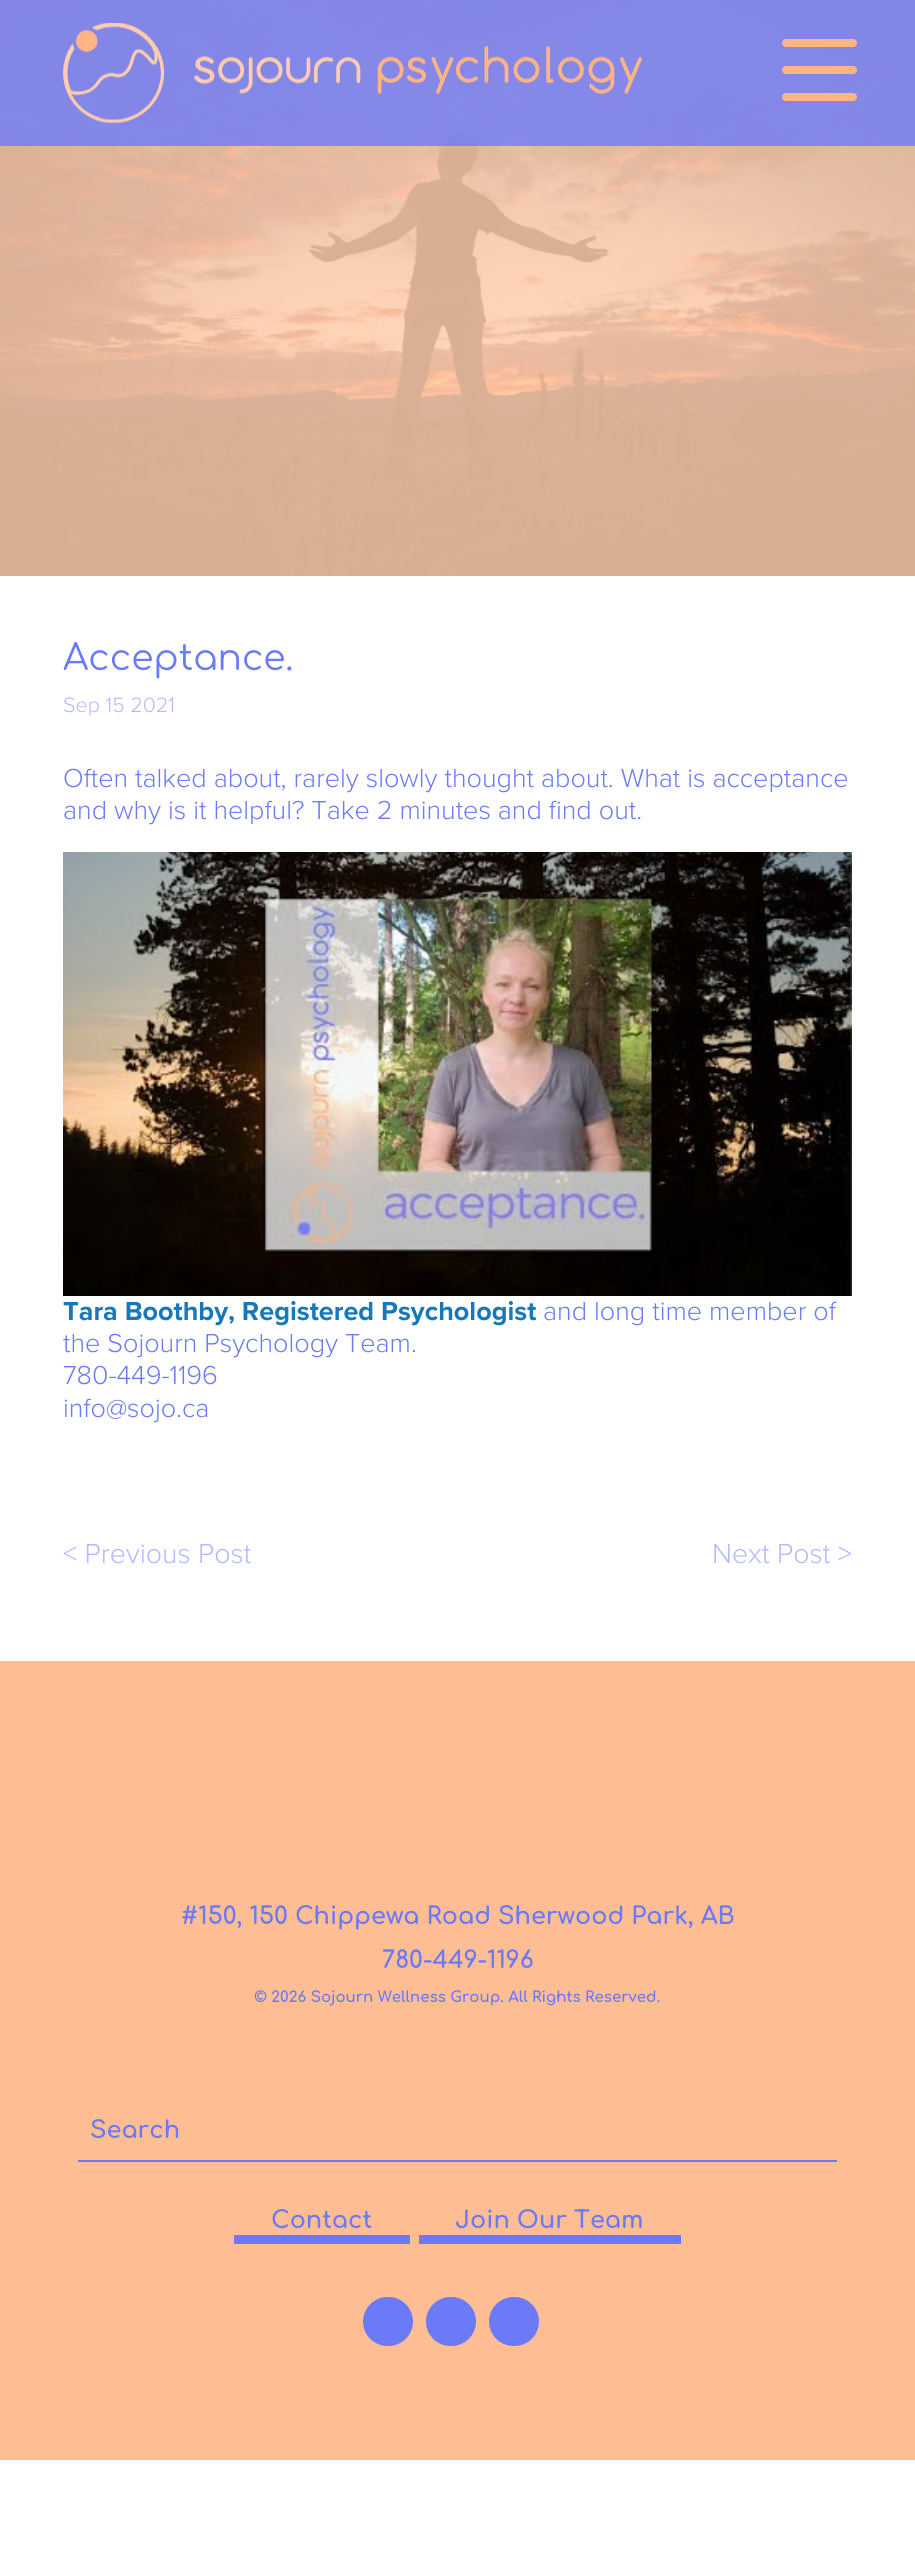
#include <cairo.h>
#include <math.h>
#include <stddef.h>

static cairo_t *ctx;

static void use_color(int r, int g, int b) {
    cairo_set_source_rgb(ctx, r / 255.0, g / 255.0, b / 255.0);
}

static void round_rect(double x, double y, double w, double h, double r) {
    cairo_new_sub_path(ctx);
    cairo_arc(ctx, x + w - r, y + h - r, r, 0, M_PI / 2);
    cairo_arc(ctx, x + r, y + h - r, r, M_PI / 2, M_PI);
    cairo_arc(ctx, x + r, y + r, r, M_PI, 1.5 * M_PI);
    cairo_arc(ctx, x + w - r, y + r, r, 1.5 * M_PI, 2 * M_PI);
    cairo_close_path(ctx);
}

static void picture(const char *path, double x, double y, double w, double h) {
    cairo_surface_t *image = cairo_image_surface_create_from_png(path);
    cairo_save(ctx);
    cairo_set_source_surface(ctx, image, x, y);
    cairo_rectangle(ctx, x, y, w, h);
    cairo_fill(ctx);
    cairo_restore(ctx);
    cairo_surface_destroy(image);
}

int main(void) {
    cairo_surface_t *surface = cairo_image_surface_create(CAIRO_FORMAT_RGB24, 915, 2573);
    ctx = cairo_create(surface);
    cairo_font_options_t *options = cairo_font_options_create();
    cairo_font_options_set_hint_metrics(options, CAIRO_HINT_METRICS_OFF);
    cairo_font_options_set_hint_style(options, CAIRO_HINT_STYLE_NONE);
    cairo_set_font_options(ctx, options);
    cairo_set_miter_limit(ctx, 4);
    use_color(255, 255, 255);
    cairo_paint(ctx);
    picture("img1.png", 0, 0, 915, 576);
    cairo_set_source_rgba(ctx, 0.42, 0.482, 0.976, 0.8);
    cairo_rectangle(ctx, 0, 0, 915, 146);
    cairo_fill(ctx);
    picture("img2.png", 63, 23, 579, 101);
    use_color(255, 180, 131);
    round_rect(782, 39, 75, 8, 4);
    cairo_fill(ctx);
    round_rect(782, 66, 75, 8, 4);
    cairo_fill(ctx);
    round_rect(782, 93, 75, 8, 4);
    cairo_fill(ctx);
    cairo_select_font_face(ctx, "Comfortaa", CAIRO_FONT_SLANT_NORMAL, CAIRO_FONT_WEIGHT_NORMAL);
    cairo_set_font_size(ctx, 36);
    use_color(107, 123, 248);
    cairo_move_to(ctx, 63, 670);
    cairo_show_text(ctx, "Acceptance.");
    cairo_select_font_face(ctx, "Proxima Nova Light", CAIRO_FONT_SLANT_NORMAL, CAIRO_FONT_WEIGHT_NORMAL);
    cairo_set_font_size(ctx, 21.5);
    use_color(177, 186, 253);
    cairo_move_to(ctx, 63, 712);
    cairo_show_text(ctx, "Sep 15 2021");
    cairo_set_font_size(ctx, 27);
    use_color(107, 123, 248);
    cairo_move_to(ctx, 63, 787);
    cairo_show_text(ctx, "Often talked about, rarely slowly thought about. What is acceptance");
    cairo_move_to(ctx, 63, 819);
    cairo_show_text(ctx, "and why is it helpful? Take 2 minutes and find out.");
    picture("img3.png", 63, 852, 789, 444);
    cairo_select_font_face(ctx, "Proxima Nova", CAIRO_FONT_SLANT_NORMAL, CAIRO_FONT_WEIGHT_BOLD);
    use_color(23, 121, 186);
    cairo_move_to(ctx, 63, 1320);
    cairo_show_text(ctx, "Tara Boothby, Registered Psychologist");
    cairo_select_font_face(ctx, "Proxima Nova Light", CAIRO_FONT_SLANT_NORMAL, CAIRO_FONT_WEIGHT_NORMAL);
    use_color(107, 123, 248);
    cairo_move_to(ctx, 543, 1320);
    cairo_show_text(ctx, "and long time member of");
    cairo_move_to(ctx, 63, 1352);
    cairo_show_text(ctx, "the Sojourn Psychology Team.");
    cairo_move_to(ctx, 63, 1384);
    cairo_show_text(ctx, "780-449-1196");
    cairo_move_to(ctx, 63, 1417);
    cairo_show_text(ctx, "info@sojo.ca");
    cairo_set_font_size(ctx, 28.5);
    use_color(177, 186, 253);
    cairo_move_to(ctx, 63, 1563);
    cairo_show_text(ctx, "< Previous Post");
    cairo_move_to(ctx, 712, 1563);
    cairo_show_text(ctx, "Next Post >");
    use_color(255, 189, 147);
    cairo_rectangle(ctx, 0, 1661, 915, 799);
    cairo_fill(ctx);
    cairo_select_font_face(ctx, "Comfortaa", CAIRO_FONT_SLANT_NORMAL, CAIRO_FONT_WEIGHT_BOLD);
    cairo_set_font_size(ctx, 24);
    use_color(107, 123, 248);
    cairo_move_to(ctx, 181, 1924);
    cairo_show_text(ctx, "#150, 150 Chippewa Road Sherwood Park, AB");
    cairo_move_to(ctx, 382, 1968);
    cairo_show_text(ctx, "780-449-1196");
    cairo_set_font_size(ctx, 15);
    cairo_move_to(ctx, 254, 2002);
    cairo_show_text(ctx, "© 2026 Sojourn Wellness Group. All Rights Reserved.");
    cairo_rectangle(ctx, 78, 2160, 759, 2);
    cairo_fill(ctx);
    cairo_set_font_size(ctx, 24);
    cairo_move_to(ctx, 90, 2138);
    cairo_show_text(ctx, "Search");
    cairo_rectangle(ctx, 234, 2235, 176, 9);
    cairo_fill(ctx);
    cairo_move_to(ctx, 271, 2228);
    cairo_show_text(ctx, "Contact");
    cairo_rectangle(ctx, 419, 2235, 262, 9);
    cairo_fill(ctx);
    cairo_move_to(ctx, 455, 2228);
    cairo_show_text(ctx, "Join Our Team");
    round_rect(363, 2297, 50, 49, 24.5);
    cairo_fill(ctx);
    round_rect(426, 2297, 50, 49, 24.5);
    cairo_fill(ctx);
    round_rect(489, 2297, 50, 49, 24.5);
    cairo_fill(ctx);
    cairo_surface_write_to_png(surface, "result.png");
    cairo_font_options_destroy(options);
    cairo_destroy(ctx);
    cairo_surface_destroy(surface);
    return 0;
}
